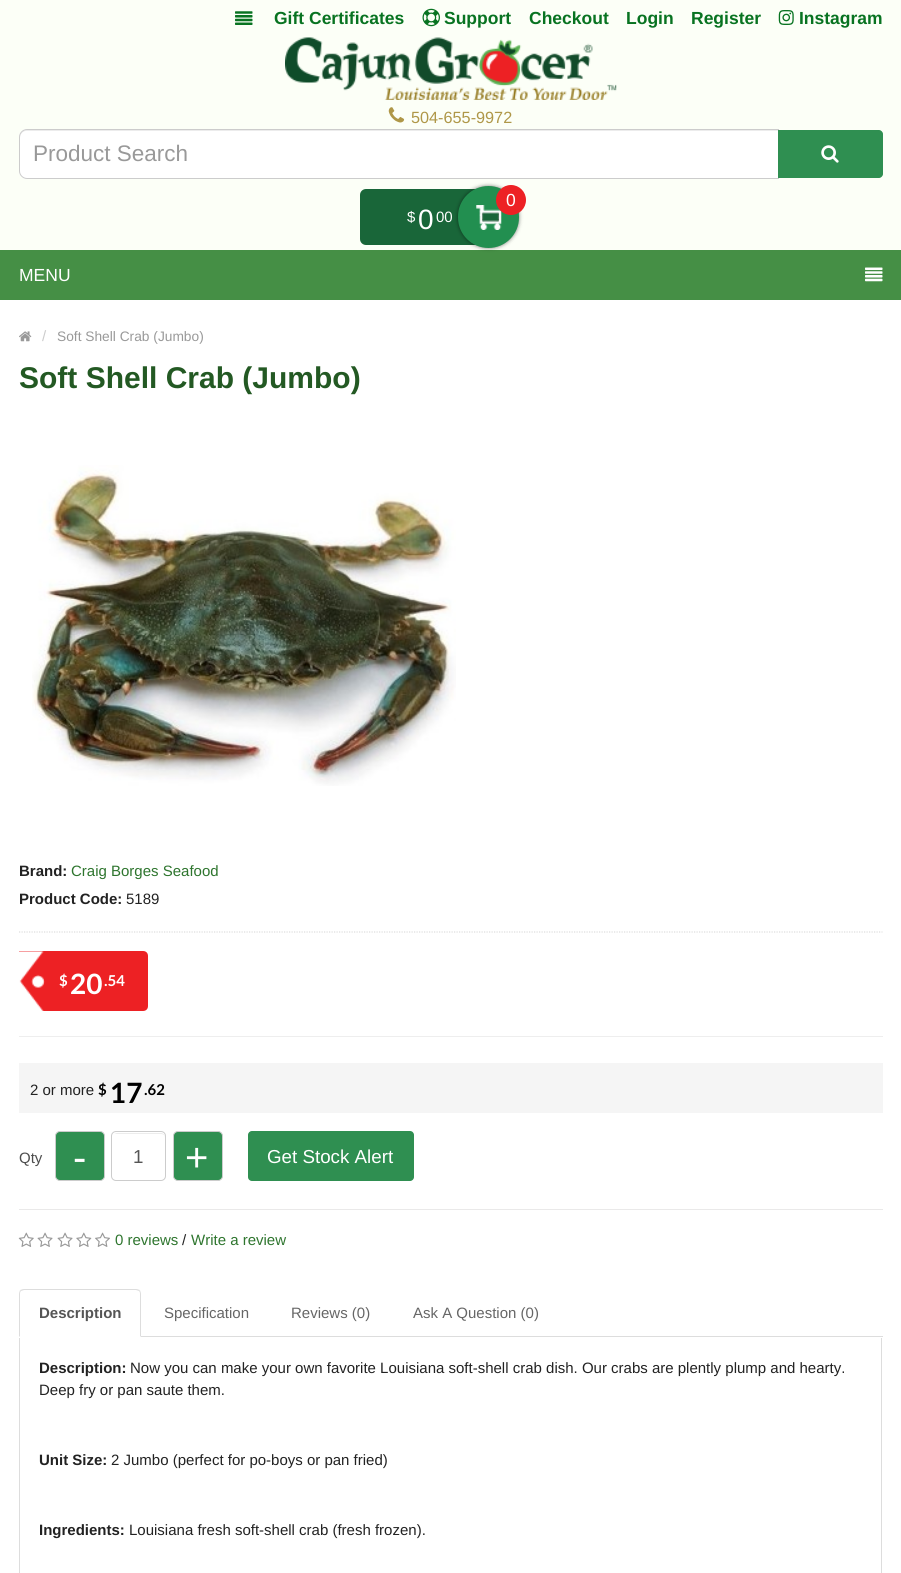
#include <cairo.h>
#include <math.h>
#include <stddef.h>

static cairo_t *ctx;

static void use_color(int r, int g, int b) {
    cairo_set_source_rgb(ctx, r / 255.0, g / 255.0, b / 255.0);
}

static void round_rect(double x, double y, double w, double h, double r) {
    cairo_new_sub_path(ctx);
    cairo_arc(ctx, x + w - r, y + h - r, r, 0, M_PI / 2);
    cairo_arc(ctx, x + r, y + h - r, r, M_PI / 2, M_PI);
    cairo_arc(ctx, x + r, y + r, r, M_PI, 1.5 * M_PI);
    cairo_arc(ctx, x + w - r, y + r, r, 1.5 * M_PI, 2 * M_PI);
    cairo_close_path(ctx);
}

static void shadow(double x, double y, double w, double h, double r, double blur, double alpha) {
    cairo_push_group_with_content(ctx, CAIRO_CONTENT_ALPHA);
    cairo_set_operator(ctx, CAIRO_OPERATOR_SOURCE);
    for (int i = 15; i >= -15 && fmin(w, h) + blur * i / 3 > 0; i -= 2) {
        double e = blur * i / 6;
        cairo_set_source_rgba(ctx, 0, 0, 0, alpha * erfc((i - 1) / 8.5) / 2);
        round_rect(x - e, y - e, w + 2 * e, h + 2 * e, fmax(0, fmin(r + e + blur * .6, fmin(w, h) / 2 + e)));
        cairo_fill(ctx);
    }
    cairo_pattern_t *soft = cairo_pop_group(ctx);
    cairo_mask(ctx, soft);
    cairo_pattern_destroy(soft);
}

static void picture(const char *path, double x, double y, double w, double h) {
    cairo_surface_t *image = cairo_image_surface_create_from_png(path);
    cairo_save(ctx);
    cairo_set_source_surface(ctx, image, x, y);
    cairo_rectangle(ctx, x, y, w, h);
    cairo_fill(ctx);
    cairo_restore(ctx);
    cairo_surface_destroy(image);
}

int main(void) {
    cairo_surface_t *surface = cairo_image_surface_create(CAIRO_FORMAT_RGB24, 901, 1573);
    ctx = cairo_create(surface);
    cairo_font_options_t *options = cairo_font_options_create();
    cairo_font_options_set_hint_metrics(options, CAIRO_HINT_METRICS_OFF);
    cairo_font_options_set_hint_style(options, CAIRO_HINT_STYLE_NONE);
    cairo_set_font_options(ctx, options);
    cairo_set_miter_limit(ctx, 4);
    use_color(255, 255, 255);
    cairo_paint(ctx);
    use_color(252, 255, 247);
    cairo_rectangle(ctx, 0, 0, 901, 250);
    cairo_fill(ctx);
    picture("img1.png", 235, 11, 18, 14);
    cairo_select_font_face(ctx, "Liberation Sans", CAIRO_FONT_SLANT_NORMAL, CAIRO_FONT_WEIGHT_BOLD);
    cairo_set_font_size(ctx, 17.5);
    use_color(8, 115, 33);
    cairo_move_to(ctx, 274, 24);
    cairo_show_text(ctx, "Gift Certificates");
    picture("img2.png", 422, 8, 18, 19);
    cairo_move_to(ctx, 444, 24);
    cairo_show_text(ctx, "Support");
    cairo_move_to(ctx, 529, 24);
    cairo_show_text(ctx, "Checkout");
    cairo_move_to(ctx, 626, 24);
    cairo_show_text(ctx, "Login");
    cairo_move_to(ctx, 691, 24);
    cairo_show_text(ctx, "Register");
    picture("img3.png", 778, 10, 16, 15);
    cairo_move_to(ctx, 799, 24);
    cairo_show_text(ctx, "Instagram");
    picture("img4.png", 285, 37, 332, 63);
    picture("img5.png", 388, 107, 17, 16);
    cairo_select_font_face(ctx, "Liberation Sans", CAIRO_FONT_SLANT_NORMAL, CAIRO_FONT_WEIGHT_NORMAL);
    cairo_set_font_size(ctx, 16.25);
    use_color(175, 151, 72);
    cairo_move_to(ctx, 411, 123);
    cairo_show_text(ctx, "504-655-9972");
    use_color(255, 255, 255);
    cairo_new_path(ctx);
    cairo_move_to(ctx, 27, 129);
    cairo_line_to(ctx, 779, 129);
    cairo_line_to(ctx, 779, 179);
    cairo_line_to(ctx, 27, 179);
    cairo_curve_to(ctx, 22.5, 179, 19, 175.5, 19, 171);
    cairo_line_to(ctx, 19, 137);
    cairo_curve_to(ctx, 19, 132.5, 22.5, 129, 27, 129);
    cairo_close_path(ctx);
    cairo_fill(ctx);
    use_color(236, 236, 236);
    cairo_new_path(ctx);
    cairo_move_to(ctx, 26, 131);
    cairo_line_to(ctx, 778, 131);
    cairo_line_to(ctx, 778, 130);
    cairo_line_to(ctx, 26, 130);
    cairo_curve_to(ctx, 23, 130, 20, 133, 20, 136);
    cairo_line_to(ctx, 20, 138);
    cairo_curve_to(ctx, 20, 134, 23, 131, 26, 131);
    cairo_close_path(ctx);
    cairo_fill(ctx);
    cairo_new_path(ctx);
    cairo_move_to(ctx, 27, 129.5);
    cairo_line_to(ctx, 778.5, 129.5);
    cairo_line_to(ctx, 778.5, 178.5);
    cairo_line_to(ctx, 27, 178.5);
    cairo_curve_to(ctx, 23, 178.5, 19.5, 175, 19.5, 171);
    cairo_line_to(ctx, 19.5, 137);
    cairo_curve_to(ctx, 19.5, 133, 23, 129.5, 27, 129.5);
    cairo_close_path(ctx);
    use_color(204, 204, 204);
    cairo_set_line_width(ctx, 1);
    cairo_stroke(ctx);
    cairo_set_font_size(ctx, 22.5);
    use_color(153, 153, 153);
    cairo_move_to(ctx, 33, 161);
    cairo_show_text(ctx, "Product Search");
    use_color(47, 143, 81);
    cairo_new_path(ctx);
    cairo_move_to(ctx, 778, 130);
    cairo_line_to(ctx, 879, 130);
    cairo_curve_to(ctx, 881, 130, 883, 132, 883, 134);
    cairo_line_to(ctx, 883, 174);
    cairo_curve_to(ctx, 883, 176, 881, 178, 879, 178);
    cairo_line_to(ctx, 778, 178);
    cairo_close_path(ctx);
    cairo_fill(ctx);
    picture("img6.png", 821, 145, 18, 18);
    use_color(25, 102, 57);
    round_rect(360, 189, 144, 56, 6);
    cairo_fill(ctx);
    use_color(69, 143, 69);
    cairo_rectangle(ctx, 0, 250, 901, 50);
    cairo_fill(ctx);
    use_color(0, 0, 0);
    shadow(458, 186, 61, 62, 30.5, 2, 0.5);
    use_color(34, 143, 80);
    round_rect(458, 186, 61, 62, 30.5);
    cairo_fill(ctx);
    picture("img7.png", 476, 205, 26, 25);
    use_color(237, 33, 36);
    cairo_arc(ctx, 511, 200, 15, 0, 2 * M_PI);
    cairo_fill(ctx);
    cairo_set_font_size(ctx, 17.5);
    use_color(255, 255, 255);
    cairo_move_to(ctx, 506, 206);
    cairo_show_text(ctx, "0");
    cairo_set_font_size(ctx, 15);
    cairo_move_to(ctx, 407, 222);
    cairo_show_text(ctx, "$");
    cairo_set_font_size(ctx, 28);
    cairo_move_to(ctx, 418, 229);
    cairo_show_text(ctx, "0");
    cairo_set_font_size(ctx, 15);
    cairo_move_to(ctx, 436, 222);
    cairo_show_text(ctx, "00");
    cairo_set_font_size(ctx, 17.5);
    cairo_move_to(ctx, 19, 281);
    cairo_show_text(ctx, "MENU");
    picture("img8.png", 865, 267, 18, 15);
    picture("img9.png", 19, 331, 13, 11);
    cairo_set_font_size(ctx, 15);
    use_color(204, 204, 204);
    cairo_move_to(ctx, 42, 341);
    cairo_show_text(ctx, "/");
    cairo_set_font_size(ctx, 13.75);
    use_color(153, 153, 153);
    cairo_move_to(ctx, 57, 341);
    cairo_show_text(ctx, "Soft Shell Crab (Jumbo)");
    cairo_select_font_face(ctx, "Liberation Sans", CAIRO_FONT_SLANT_NORMAL, CAIRO_FONT_WEIGHT_BOLD);
    cairo_set_font_size(ctx, 30);
    use_color(35, 89, 35);
    cairo_move_to(ctx, 19, 388);
    cairo_show_text(ctx, "Soft Shell Crab (Jumbo)");
    picture("img10.png", 32, 465, 424, 321);
    cairo_set_font_size(ctx, 15);
    use_color(34, 34, 34);
    cairo_move_to(ctx, 19, 876);
    cairo_show_text(ctx, "Brand:");
    cairo_select_font_face(ctx, "Liberation Sans", CAIRO_FONT_SLANT_NORMAL, CAIRO_FONT_WEIGHT_NORMAL);
    use_color(46, 117, 46);
    cairo_move_to(ctx, 71, 876);
    cairo_show_text(ctx, "Craig Borges Seafood");
    cairo_select_font_face(ctx, "Liberation Sans", CAIRO_FONT_SLANT_NORMAL, CAIRO_FONT_WEIGHT_BOLD);
    use_color(34, 34, 34);
    cairo_move_to(ctx, 19, 904);
    cairo_show_text(ctx, "Product Code:");
    cairo_select_font_face(ctx, "Liberation Sans", CAIRO_FONT_SLANT_NORMAL, CAIRO_FONT_WEIGHT_NORMAL);
    cairo_move_to(ctx, 126, 904);
    cairo_show_text(ctx, "5189");
    cairo_new_path(ctx);
    cairo_move_to(ctx, 19, 932);
    cairo_line_to(ctx, 882.5, 932);
    use_color(221, 221, 221);
    cairo_set_line_width(ctx, 1.2);
    cairo_set_dash(ctx, (double[]){1.25, 1.25}, 2, 0);
    cairo_stroke(ctx);
    use_color(237, 33, 36);
    cairo_new_path(ctx);
    cairo_move_to(ctx, 19, 951);
    cairo_line_to(ctx, 143, 951);
    cairo_curve_to(ctx, 146, 951, 148, 953, 148, 956);
    cairo_line_to(ctx, 148, 1006);
    cairo_curve_to(ctx, 148, 1009, 146, 1011, 143, 1011);
    cairo_line_to(ctx, 19, 1011);
    cairo_close_path(ctx);
    cairo_fill(ctx);
    picture("img11.png", 19, 951, 26, 60);
    cairo_select_font_face(ctx, "Lato", CAIRO_FONT_SLANT_NORMAL, CAIRO_FONT_WEIGHT_BOLD);
    use_color(255, 255, 255);
    cairo_move_to(ctx, 59, 986);
    cairo_show_text(ctx, "$");
    cairo_set_font_size(ctx, 28);
    cairo_move_to(ctx, 70, 994);
    cairo_show_text(ctx, "20");
    cairo_set_font_size(ctx, 15);
    cairo_move_to(ctx, 104, 986);
    cairo_show_text(ctx, ".54");
    use_color(238, 238, 238);
    cairo_rectangle(ctx, 19, 1036, 864, 1);
    cairo_fill(ctx);
    use_color(245, 245, 245);
    cairo_rectangle(ctx, 19, 1063, 864, 50);
    cairo_fill(ctx);
    cairo_select_font_face(ctx, "Liberation Sans", CAIRO_FONT_SLANT_NORMAL, CAIRO_FONT_WEIGHT_NORMAL);
    use_color(34, 34, 34);
    cairo_move_to(ctx, 30, 1095);
    cairo_show_text(ctx, "2 or more");
    cairo_select_font_face(ctx, "Lato", CAIRO_FONT_SLANT_NORMAL, CAIRO_FONT_WEIGHT_BOLD);
    use_color(0, 0, 0);
    cairo_move_to(ctx, 98, 1095);
    cairo_show_text(ctx, "$");
    cairo_set_font_size(ctx, 28);
    cairo_move_to(ctx, 110, 1103);
    cairo_show_text(ctx, "17");
    cairo_set_font_size(ctx, 15);
    cairo_move_to(ctx, 144, 1095);
    cairo_show_text(ctx, ".62");
    use_color(234, 233, 233);
    cairo_rectangle(ctx, 19, 1209, 864, 1);
    cairo_fill(ctx);
    cairo_select_font_face(ctx, "Liberation Sans", CAIRO_FONT_SLANT_NORMAL, CAIRO_FONT_WEIGHT_NORMAL);
    use_color(77, 77, 77);
    cairo_move_to(ctx, 19, 1163);
    cairo_show_text(ctx, "Qty");
    use_color(47, 143, 81);
    round_rect(55.5, 1131.5, 49, 49, 4.5);
    cairo_fill_preserve(ctx);
    use_color(204, 204, 204);
    cairo_set_line_width(ctx, 1);
    cairo_set_dash(ctx, NULL, 0, 0);
    cairo_stroke(ctx);
    cairo_set_font_size(ctx, 40);
    use_color(255, 255, 255);
    cairo_move_to(ctx, 73, 1171);
    cairo_show_text(ctx, "-");
    use_color(236, 236, 236);
    cairo_new_path(ctx);
    cairo_move_to(ctx, 116, 1134);
    cairo_line_to(ctx, 161, 1134);
    cairo_curve_to(ctx, 163, 1134, 165, 1135, 165, 1138);
    cairo_line_to(ctx, 165, 1137);
    cairo_curve_to(ctx, 165, 1135, 163, 1133, 161, 1133);
    cairo_line_to(ctx, 117, 1133);
    cairo_curve_to(ctx, 116, 1133, 115, 1134, 114, 1134);
    cairo_close_path(ctx);
    cairo_fill(ctx);
    round_rect(111.5, 1131.5, 54, 49, 4.5);
    use_color(204, 204, 204);
    cairo_stroke(ctx);
    cairo_set_font_size(ctx, 18.75);
    use_color(85, 85, 85);
    cairo_move_to(ctx, 133, 1163);
    cairo_show_text(ctx, "1");
    use_color(47, 143, 81);
    round_rect(173.5, 1131.5, 49, 49, 4.5);
    cairo_fill_preserve(ctx);
    use_color(204, 204, 204);
    cairo_stroke(ctx);
    cairo_set_font_size(ctx, 40);
    use_color(255, 255, 255);
    cairo_move_to(ctx, 185, 1171);
    cairo_show_text(ctx, "+");
    use_color(47, 143, 81);
    round_rect(248, 1131, 166, 50, 4);
    cairo_fill(ctx);
    cairo_set_font_size(ctx, 18.75);
    use_color(255, 255, 255);
    cairo_move_to(ctx, 267, 1163);
    cairo_show_text(ctx, "Get Stock Alert");
    picture("img12.png", 18, 1232, 16, 15);
    picture("img13.png", 37, 1232, 16, 15);
    picture("img13.png", 57, 1232, 16, 15);
    picture("img14.png", 76, 1232, 16, 15);
    picture("img15.png", 95, 1232, 15, 15);
    cairo_set_font_size(ctx, 15);
    use_color(46, 117, 46);
    cairo_move_to(ctx, 115, 1245);
    cairo_show_text(ctx, "0 reviews");
    use_color(34, 34, 34);
    cairo_move_to(ctx, 182, 1245);
    cairo_show_text(ctx, "/");
    use_color(46, 117, 46);
    cairo_move_to(ctx, 191, 1245);
    cairo_show_text(ctx, "Write a review");
    use_color(221, 221, 221);
    cairo_rectangle(ctx, 141, 1336, 742, 1);
    cairo_fill(ctx);
    cairo_new_path(ctx);
    cairo_move_to(ctx, 24, 1289);
    cairo_curve_to(ctx, 22, 1289, 21, 1290, 20, 1290);
    cairo_line_to(ctx, 21, 1291);
    cairo_line_to(ctx, 24, 1290);
    cairo_line_to(ctx, 136, 1290);
    cairo_line_to(ctx, 139, 1291);
    cairo_line_to(ctx, 140, 1290);
    cairo_curve_to(ctx, 139, 1290, 138, 1289, 136, 1289);
    cairo_close_path(ctx);
    cairo_fill(ctx);
    cairo_new_path(ctx);
    cairo_move_to(ctx, 141, 1337);
    cairo_line_to(ctx, 141, 1294);
    cairo_curve_to(ctx, 141, 1292, 140, 1291, 140, 1290);
    cairo_line_to(ctx, 139, 1291);
    cairo_curve_to(ctx, 140, 1292, 140, 1293, 140, 1294);
    cairo_line_to(ctx, 140, 1336);
    cairo_close_path(ctx);
    cairo_fill(ctx);
    cairo_new_path(ctx);
    cairo_move_to(ctx, 20, 1290);
    cairo_curve_to(ctx, 20, 1291, 19, 1292, 19, 1294);
    cairo_line_to(ctx, 19, 1337);
    cairo_line_to(ctx, 20, 1336);
    cairo_line_to(ctx, 20, 1294);
    cairo_curve_to(ctx, 20, 1293, 20, 1292, 21, 1291);
    cairo_close_path(ctx);
    cairo_fill(ctx);
    cairo_select_font_face(ctx, "Liberation Sans", CAIRO_FONT_SLANT_NORMAL, CAIRO_FONT_WEIGHT_BOLD);
    use_color(85, 85, 85);
    cairo_move_to(ctx, 39, 1318);
    cairo_show_text(ctx, "Description");
    cairo_select_font_face(ctx, "Liberation Sans", CAIRO_FONT_SLANT_NORMAL, CAIRO_FONT_WEIGHT_NORMAL);
    use_color(102, 102, 102);
    cairo_move_to(ctx, 164, 1318);
    cairo_show_text(ctx, "Specification");
    cairo_move_to(ctx, 291, 1318);
    cairo_show_text(ctx, "Reviews (0)");
    cairo_move_to(ctx, 413, 1318);
    cairo_show_text(ctx, "Ask A Question (0)");
    use_color(221, 221, 221);
    cairo_set_fill_rule(ctx, CAIRO_FILL_RULE_EVEN_ODD);
    cairo_new_path(ctx);
    cairo_move_to(ctx, 19, 1338);
    cairo_line_to(ctx, 882, 1338);
    cairo_line_to(ctx, 882, 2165);
    cairo_curve_to(ctx, 882, 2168, 880, 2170, 878, 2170);
    cairo_line_to(ctx, 24, 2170);
    cairo_curve_to(ctx, 21, 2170, 19, 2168, 19, 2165);
    cairo_close_path(ctx);
    cairo_move_to(ctx, 20, 1338);
    cairo_line_to(ctx, 881, 1338);
    cairo_line_to(ctx, 881, 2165);
    cairo_curve_to(ctx, 881, 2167, 880, 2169, 878, 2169);
    cairo_line_to(ctx, 24, 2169);
    cairo_curve_to(ctx, 22, 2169, 20, 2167, 20, 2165);
    cairo_close_path(ctx);
    cairo_fill(ctx);
    cairo_select_font_face(ctx, "Liberation Sans", CAIRO_FONT_SLANT_NORMAL, CAIRO_FONT_WEIGHT_BOLD);
    use_color(34, 34, 34);
    cairo_move_to(ctx, 39, 1373);
    cairo_show_text(ctx, "Description:");
    cairo_select_font_face(ctx, "Liberation Sans", CAIRO_FONT_SLANT_NORMAL, CAIRO_FONT_WEIGHT_NORMAL);
    cairo_move_to(ctx, 130, 1373);
    cairo_show_text(ctx, "Now you can make your own favorite Louisiana soft-shell crab dish. Our crabs are plently plump and hearty.");
    cairo_move_to(ctx, 39, 1395);
    cairo_show_text(ctx, "Deep fry or pan saute them.");
    cairo_select_font_face(ctx, "Liberation Sans", CAIRO_FONT_SLANT_NORMAL, CAIRO_FONT_WEIGHT_BOLD);
    cairo_move_to(ctx, 39, 1465);
    cairo_show_text(ctx, "Unit Size:");
    cairo_select_font_face(ctx, "Liberation Sans", CAIRO_FONT_SLANT_NORMAL, CAIRO_FONT_WEIGHT_NORMAL);
    cairo_move_to(ctx, 111, 1465);
    cairo_show_text(ctx, "2 Jumbo (perfect for po-boys or pan fried)");
    cairo_select_font_face(ctx, "Liberation Sans", CAIRO_FONT_SLANT_NORMAL, CAIRO_FONT_WEIGHT_BOLD);
    cairo_move_to(ctx, 39, 1535);
    cairo_show_text(ctx, "Ingredients:");
    cairo_select_font_face(ctx, "Liberation Sans", CAIRO_FONT_SLANT_NORMAL, CAIRO_FONT_WEIGHT_NORMAL);
    cairo_move_to(ctx, 129, 1535);
    cairo_show_text(ctx, "Louisiana fresh soft-shell crab (fresh frozen).");
    cairo_surface_write_to_png(surface, "result.png");
    cairo_font_options_destroy(options);
    cairo_destroy(ctx);
    cairo_surface_destroy(surface);
    return 0;
}
